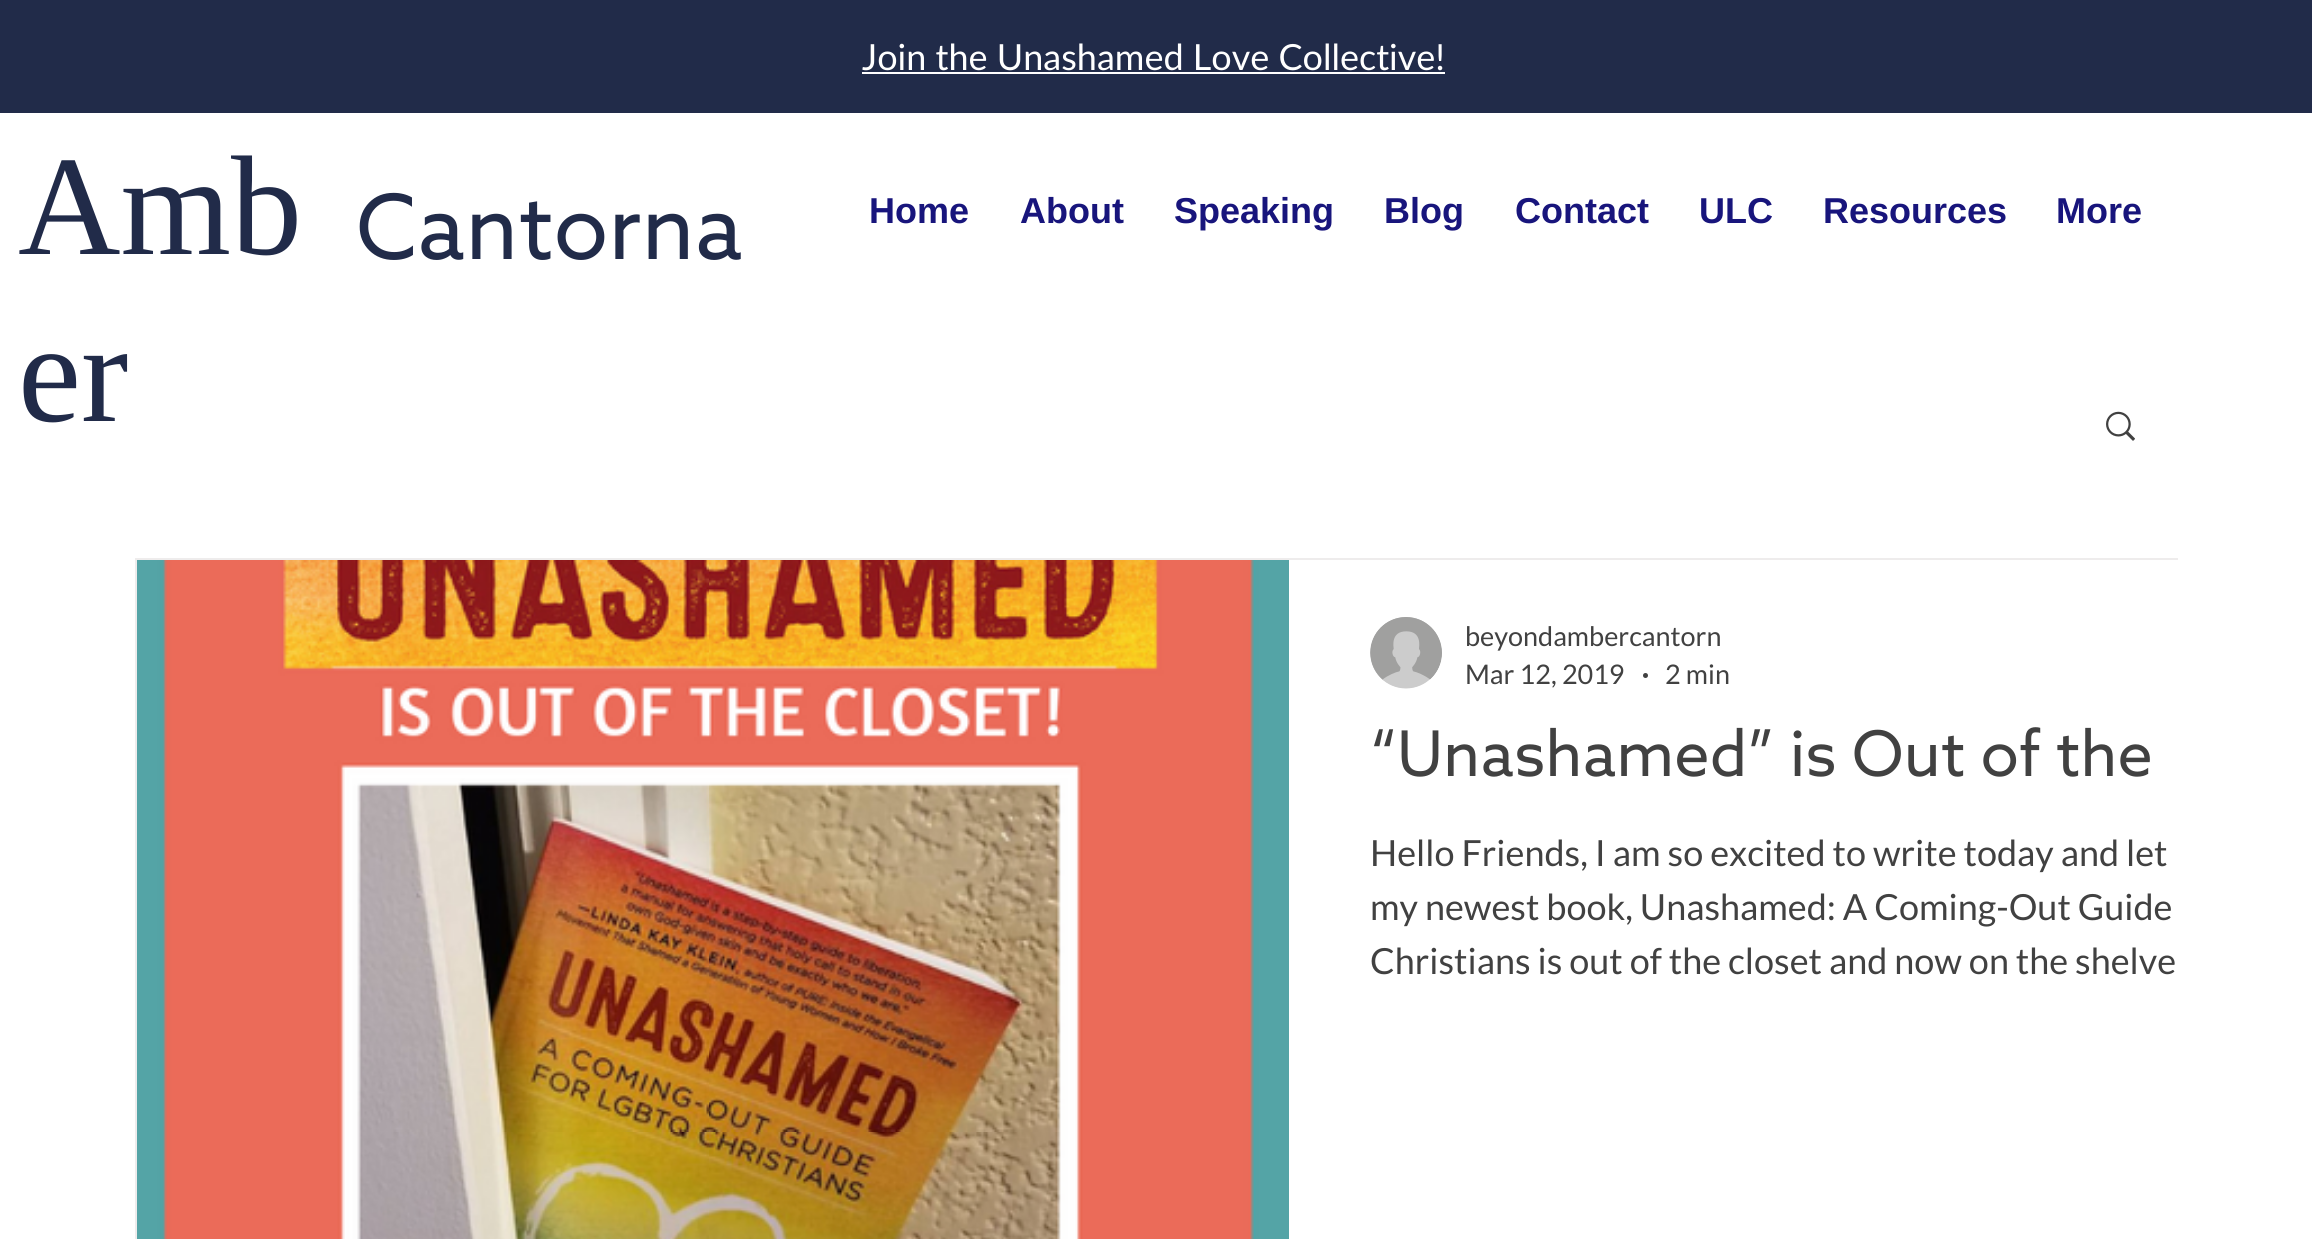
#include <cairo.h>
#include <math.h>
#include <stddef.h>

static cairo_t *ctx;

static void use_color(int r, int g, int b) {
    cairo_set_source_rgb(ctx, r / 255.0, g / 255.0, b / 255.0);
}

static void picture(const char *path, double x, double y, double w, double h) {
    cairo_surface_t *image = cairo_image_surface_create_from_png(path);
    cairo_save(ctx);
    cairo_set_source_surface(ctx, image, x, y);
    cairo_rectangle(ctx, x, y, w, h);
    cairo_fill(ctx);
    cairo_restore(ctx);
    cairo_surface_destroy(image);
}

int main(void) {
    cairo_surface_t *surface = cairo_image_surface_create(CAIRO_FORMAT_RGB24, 2312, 1239);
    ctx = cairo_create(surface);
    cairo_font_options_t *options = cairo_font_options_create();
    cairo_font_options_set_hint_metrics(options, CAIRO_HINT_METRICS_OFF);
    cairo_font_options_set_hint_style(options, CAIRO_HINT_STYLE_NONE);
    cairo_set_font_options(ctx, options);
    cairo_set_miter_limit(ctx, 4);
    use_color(255, 255, 255);
    cairo_paint(ctx);
    use_color(33, 43, 73);
    cairo_rectangle(ctx, 0, 0, 2312, 113);
    cairo_fill(ctx);
    cairo_select_font_face(ctx, "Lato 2", CAIRO_FONT_SLANT_NORMAL, CAIRO_FONT_WEIGHT_NORMAL);
    cairo_set_font_size(ctx, 36);
    use_color(255, 255, 255);
    cairo_move_to(ctx, 862, 70);
    cairo_show_text(ctx, "Join the Unashamed Love Collective!");
    cairo_rectangle(ctx, 862, 72, 583, 2);
    cairo_fill(ctx);
    cairo_select_font_face(ctx, "Liberation Serif", CAIRO_FONT_SLANT_NORMAL, CAIRO_FONT_WEIGHT_NORMAL);
    cairo_set_font_size(ctx, 142);
    use_color(33, 43, 73);
    cairo_move_to(ctx, 18, 254);
    cairo_show_text(ctx, "Amb");
    cairo_move_to(ctx, 18, 421);
    cairo_show_text(ctx, "er");
    cairo_select_font_face(ctx, "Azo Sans", CAIRO_FONT_SLANT_NORMAL, CAIRO_FONT_WEIGHT_NORMAL);
    cairo_set_font_size(ctx, 90);
    cairo_move_to(ctx, 356, 259);
    cairo_show_text(ctx, "Cantorna");
    cairo_select_font_face(ctx, "Liberation Sans", CAIRO_FONT_SLANT_NORMAL, CAIRO_FONT_WEIGHT_BOLD);
    cairo_set_font_size(ctx, 36);
    use_color(24, 21, 124);
    cairo_move_to(ctx, 869, 223);
    cairo_show_text(ctx, "Home");
    cairo_move_to(ctx, 1020, 223);
    cairo_show_text(ctx, "About");
    cairo_move_to(ctx, 1174, 223);
    cairo_show_text(ctx, "Speaking");
    cairo_move_to(ctx, 1384, 223);
    cairo_show_text(ctx, "Blog");
    cairo_move_to(ctx, 1515, 223);
    cairo_show_text(ctx, "Contact");
    cairo_move_to(ctx, 1699, 223);
    cairo_show_text(ctx, "ULC");
    cairo_move_to(ctx, 1823, 223);
    cairo_show_text(ctx, "Resources");
    cairo_move_to(ctx, 2056, 223);
    cairo_show_text(ctx, "More");
    picture("img1.png", 2106, 411, 29, 30);
    cairo_save(ctx);
    cairo_rectangle(ctx, 135, 558, 2043, 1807);
    cairo_clip(ctx);
    cairo_rectangle(ctx, 136, 559, 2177, 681);
    use_color(238, 236, 236);
    cairo_stroke(ctx);
    cairo_restore(ctx);
    picture("img2.png", 137, 560, 1152, 679);
    picture("img3.png", 1370, 617, 72, 72);
    cairo_select_font_face(ctx, "Lato", CAIRO_FONT_SLANT_NORMAL, CAIRO_FONT_WEIGHT_NORMAL);
    cairo_set_font_size(ctx, 27);
    use_color(65, 65, 65);
    cairo_move_to(ctx, 1465, 646);
    cairo_show_text(ctx, "beyondambercantorn");
    cairo_move_to(ctx, 1465, 684);
    cairo_show_text(ctx, "Mar 12, 2019");
    cairo_new_path(ctx);
    cairo_arc(ctx, 1645.5, 675.5, 2.5, 0, 2 * M_PI);
    cairo_fill(ctx);
    cairo_move_to(ctx, 1665, 684);
    cairo_show_text(ctx, "2 min");
    cairo_select_font_face(ctx, "Azo Sans", CAIRO_FONT_SLANT_NORMAL, CAIRO_FONT_WEIGHT_NORMAL);
    cairo_set_font_size(ctx, 63);
    cairo_move_to(ctx, 1370, 776);
    cairo_show_text(ctx, "“Unashamed” is Out of the");
    cairo_select_font_face(ctx, "Lato", CAIRO_FONT_SLANT_NORMAL, CAIRO_FONT_WEIGHT_NORMAL);
    cairo_set_font_size(ctx, 36);
    cairo_move_to(ctx, 1370, 866);
    cairo_show_text(ctx, "Hello Friends, I am so excited to write today and let");
    cairo_move_to(ctx, 1370, 920);
    cairo_show_text(ctx, "my newest book, Unashamed: A Coming-Out Guide");
    cairo_move_to(ctx, 1370, 974);
    cairo_show_text(ctx, "Christians is out of the closet and now on the shelve");
    cairo_surface_write_to_png(surface, "result.png");
    cairo_font_options_destroy(options);
    cairo_destroy(ctx);
    cairo_surface_destroy(surface);
    return 0;
}
